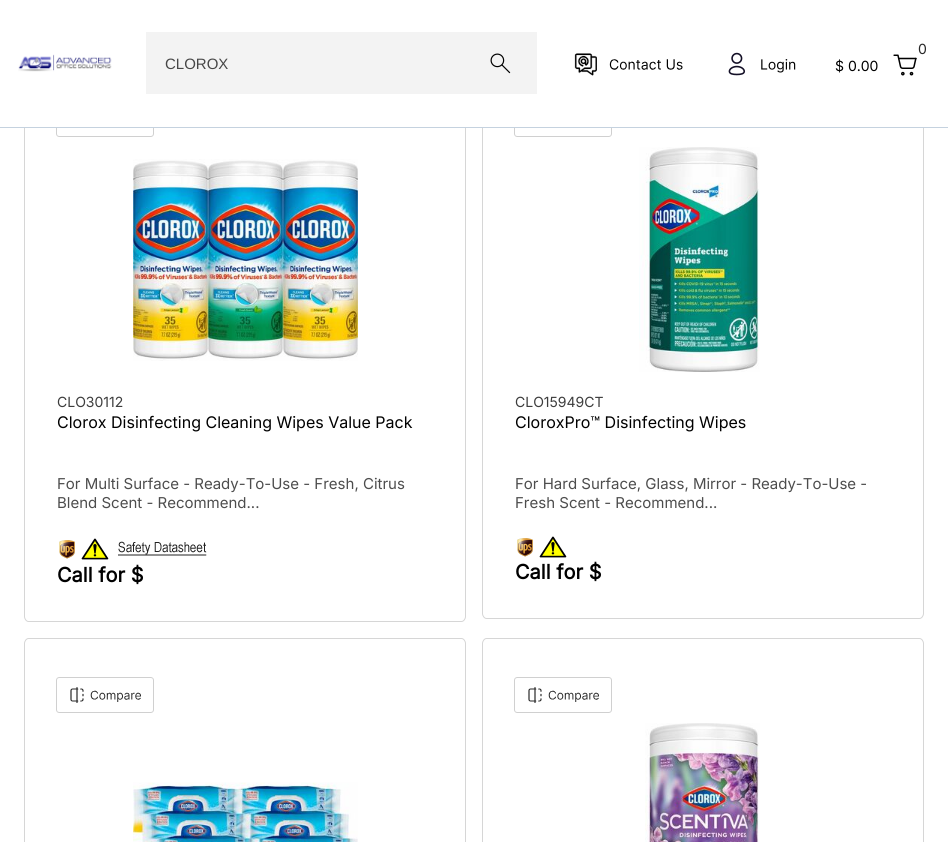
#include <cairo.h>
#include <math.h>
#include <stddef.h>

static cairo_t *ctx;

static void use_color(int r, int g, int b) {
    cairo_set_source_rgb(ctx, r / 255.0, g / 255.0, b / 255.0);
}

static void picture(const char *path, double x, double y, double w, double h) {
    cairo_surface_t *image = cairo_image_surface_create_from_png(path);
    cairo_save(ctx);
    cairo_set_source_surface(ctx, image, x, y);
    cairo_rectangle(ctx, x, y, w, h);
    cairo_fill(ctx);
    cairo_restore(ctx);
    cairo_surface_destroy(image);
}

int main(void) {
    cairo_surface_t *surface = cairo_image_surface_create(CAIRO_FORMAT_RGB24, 948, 842);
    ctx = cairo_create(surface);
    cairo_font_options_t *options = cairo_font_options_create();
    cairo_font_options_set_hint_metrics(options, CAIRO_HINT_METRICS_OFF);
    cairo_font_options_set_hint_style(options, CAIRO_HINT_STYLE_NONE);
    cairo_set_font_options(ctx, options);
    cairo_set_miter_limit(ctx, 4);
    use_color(255, 255, 255);
    cairo_paint(ctx);
    cairo_new_path(ctx);
    cairo_move_to(ctx, 28.5, 62.5);
    cairo_line_to(ctx, 461.5, 62.5);
    cairo_curve_to(ctx, 463.5, 62.5, 465.5, 65, 465.5, 67.5);
    cairo_line_to(ctx, 465.5, 616.5);
    cairo_curve_to(ctx, 465.5, 619, 463.5, 621.5, 461.5, 621.5);
    cairo_line_to(ctx, 28.5, 621.5);
    cairo_curve_to(ctx, 26.5, 621.5, 24.5, 619, 24.5, 616.5);
    cairo_line_to(ctx, 24.5, 67.5);
    cairo_curve_to(ctx, 24.5, 65, 26.5, 62.5, 28.5, 62.5);
    cairo_close_path(ctx);
    use_color(214, 214, 214);
    cairo_set_line_width(ctx, 1);
    cairo_stroke(ctx);
    cairo_new_path(ctx);
    cairo_move_to(ctx, 486.5, 62.5);
    cairo_line_to(ctx, 919.5, 62.5);
    cairo_curve_to(ctx, 921.5, 62.5, 923.5, 65, 923.5, 67.5);
    cairo_line_to(ctx, 923.5, 613.5);
    cairo_curve_to(ctx, 923.5, 616, 921.5, 618.5, 919.5, 618.5);
    cairo_line_to(ctx, 486.5, 618.5);
    cairo_curve_to(ctx, 484.5, 618.5, 482.5, 616, 482.5, 613.5);
    cairo_line_to(ctx, 482.5, 67.5);
    cairo_curve_to(ctx, 482.5, 65, 484.5, 62.5, 486.5, 62.5);
    cairo_close_path(ctx);
    cairo_stroke(ctx);
    use_color(255, 255, 255);
    cairo_rectangle(ctx, 24, 62, 900, 65);
    cairo_fill(ctx);
    use_color(197, 210, 223);
    cairo_rectangle(ctx, 0, 127, 948, 1);
    cairo_fill(ctx);
    picture("img1.png", 18, 54, 94, 18);
    use_color(243, 243, 243);
    cairo_rectangle(ctx, 146, 32, 391, 62);
    cairo_fill(ctx);
    cairo_select_font_face(ctx, "Liberation Sans", CAIRO_FONT_SLANT_NORMAL, CAIRO_FONT_WEIGHT_NORMAL);
    cairo_set_font_size(ctx, 15);
    use_color(71, 71, 71);
    cairo_move_to(ctx, 165, 69);
    cairo_show_text(ctx, "CLOROX");
    picture("img2.png", 490, 53, 21, 21);
    picture("img3.png", 574, 53, 109, 23);
    picture("img4.png", 728, 52, 68, 24);
    cairo_select_font_face(ctx, "Inter", CAIRO_FONT_SLANT_NORMAL, CAIRO_FONT_WEIGHT_NORMAL);
    cairo_set_font_size(ctx, 14);
    use_color(40, 40, 40);
    cairo_move_to(ctx, 918, 54);
    cairo_show_text(ctx, "0");
    picture("img5.png", 893, 54, 24, 22);
    use_color(0, 0, 0);
    cairo_move_to(ctx, 835, 71);
    cairo_show_text(ctx, "$ 0.00");
    picture("img6.png", 56, 128, 98, 9);
    picture("img7.png", 133, 159, 225, 202);
    use_color(61, 61, 61);
    cairo_move_to(ctx, 57, 407);
    cairo_show_text(ctx, "CLO30112");
    cairo_set_font_size(ctx, 16);
    use_color(0, 0, 0);
    cairo_move_to(ctx, 57, 428);
    cairo_show_text(ctx, "Clorox Disinfecting Cleaning Wipes Value Pack");
    cairo_set_font_size(ctx, 15);
    use_color(77, 77, 77);
    cairo_move_to(ctx, 57, 489);
    cairo_show_text(ctx, "For Multi Surface - Ready-To-Use - Fresh, Citrus");
    cairo_move_to(ctx, 57, 508);
    cairo_show_text(ctx, "Blend Scent - Recommend...");
    picture("img8.png", 59, 540, 16, 19);
    picture("img9.png", 81, 538, 28, 22);
    picture("img10.png", 118, 541, 89, 15);
    cairo_select_font_face(ctx, "Inter", CAIRO_FONT_SLANT_NORMAL, CAIRO_FONT_WEIGHT_BOLD);
    cairo_set_font_size(ctx, 20);
    use_color(0, 0, 0);
    cairo_move_to(ctx, 57, 582);
    cairo_show_text(ctx, "Call for $");
    picture("img6.png", 514, 128, 98, 9);
    picture("img11.png", 639, 147, 121, 225);
    cairo_select_font_face(ctx, "Inter", CAIRO_FONT_SLANT_NORMAL, CAIRO_FONT_WEIGHT_NORMAL);
    cairo_set_font_size(ctx, 14);
    use_color(61, 61, 61);
    cairo_move_to(ctx, 515, 407);
    cairo_show_text(ctx, "CLO15949CT");
    cairo_set_font_size(ctx, 16);
    use_color(0, 0, 0);
    cairo_move_to(ctx, 515, 428);
    cairo_show_text(ctx, "CloroxPro™ Disinfecting Wipes");
    cairo_set_font_size(ctx, 15);
    use_color(77, 77, 77);
    cairo_move_to(ctx, 515, 489);
    cairo_show_text(ctx, "For Hard Surface, Glass, Mirror - Ready-To-Use -");
    cairo_move_to(ctx, 515, 508);
    cairo_show_text(ctx, "Fresh Scent - Recommend...");
    picture("img8.png", 517, 538, 16, 19);
    picture("img9.png", 539, 536, 28, 22);
    cairo_select_font_face(ctx, "Inter", CAIRO_FONT_SLANT_NORMAL, CAIRO_FONT_WEIGHT_BOLD);
    cairo_set_font_size(ctx, 20);
    use_color(0, 0, 0);
    cairo_move_to(ctx, 515, 579);
    cairo_show_text(ctx, "Call for $");
    cairo_new_path(ctx);
    cairo_move_to(ctx, 28.5, 638.5);
    cairo_line_to(ctx, 461.5, 638.5);
    cairo_curve_to(ctx, 463.5, 638.5, 465.5, 641, 465.5, 643.5);
    cairo_line_to(ctx, 465.5, 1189.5);
    cairo_curve_to(ctx, 465.5, 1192, 463.5, 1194.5, 461.5, 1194.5);
    cairo_line_to(ctx, 28.5, 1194.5);
    cairo_curve_to(ctx, 26.5, 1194.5, 24.5, 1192, 24.5, 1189.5);
    cairo_line_to(ctx, 24.5, 643.5);
    cairo_curve_to(ctx, 24.5, 641, 26.5, 638.5, 28.5, 638.5);
    cairo_close_path(ctx);
    use_color(214, 214, 214);
    cairo_stroke(ctx);
    picture("img12.png", 56, 677, 98, 36);
    picture("img13.png", 133, 782, 225, 60);
    cairo_new_path(ctx);
    cairo_move_to(ctx, 486.5, 638.5);
    cairo_line_to(ctx, 919.5, 638.5);
    cairo_curve_to(ctx, 921.5, 638.5, 923.5, 641, 923.5, 643.5);
    cairo_line_to(ctx, 923.5, 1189.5);
    cairo_curve_to(ctx, 923.5, 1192, 921.5, 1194.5, 919.5, 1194.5);
    cairo_line_to(ctx, 486.5, 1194.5);
    cairo_curve_to(ctx, 484.5, 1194.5, 482.5, 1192, 482.5, 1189.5);
    cairo_line_to(ctx, 482.5, 643.5);
    cairo_curve_to(ctx, 482.5, 641, 484.5, 638.5, 486.5, 638.5);
    cairo_close_path(ctx);
    cairo_stroke(ctx);
    picture("img12.png", 514, 677, 98, 36);
    picture("img14.png", 645, 723, 115, 119);
    cairo_surface_write_to_png(surface, "result.png");
    cairo_font_options_destroy(options);
    cairo_destroy(ctx);
    cairo_surface_destroy(surface);
    return 0;
}
